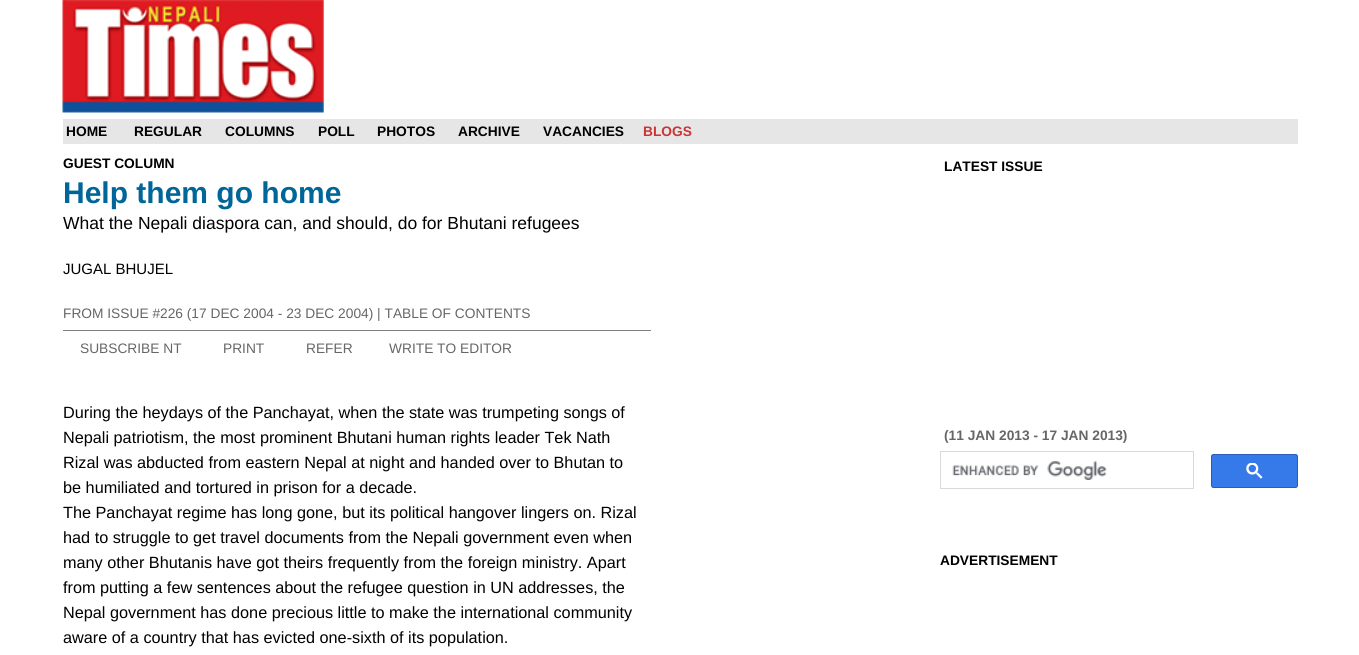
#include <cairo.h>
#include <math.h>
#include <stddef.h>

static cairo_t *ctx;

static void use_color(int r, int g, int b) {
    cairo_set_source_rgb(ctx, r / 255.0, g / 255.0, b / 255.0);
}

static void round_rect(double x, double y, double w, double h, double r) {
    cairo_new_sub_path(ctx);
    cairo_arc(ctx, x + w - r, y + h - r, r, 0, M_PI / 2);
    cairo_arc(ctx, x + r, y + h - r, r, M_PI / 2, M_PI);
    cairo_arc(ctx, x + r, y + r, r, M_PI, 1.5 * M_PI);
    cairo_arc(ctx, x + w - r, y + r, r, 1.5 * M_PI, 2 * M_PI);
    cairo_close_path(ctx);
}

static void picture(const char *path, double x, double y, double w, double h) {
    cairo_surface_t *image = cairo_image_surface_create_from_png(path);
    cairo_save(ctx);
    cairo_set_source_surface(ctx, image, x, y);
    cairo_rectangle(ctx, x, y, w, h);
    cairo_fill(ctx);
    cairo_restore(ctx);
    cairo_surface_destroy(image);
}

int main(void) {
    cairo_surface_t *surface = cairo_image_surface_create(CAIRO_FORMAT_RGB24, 1359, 655);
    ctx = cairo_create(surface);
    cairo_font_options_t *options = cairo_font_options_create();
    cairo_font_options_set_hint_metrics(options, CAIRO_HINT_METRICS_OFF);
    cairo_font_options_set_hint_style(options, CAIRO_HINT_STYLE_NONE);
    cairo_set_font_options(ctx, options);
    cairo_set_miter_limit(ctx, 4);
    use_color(255, 255, 255);
    cairo_paint(ctx);
    picture("img1.png", 62, 0, 262, 113);
    use_color(231, 230, 230);
    cairo_rectangle(ctx, 63, 119, 1235, 25);
    cairo_fill(ctx);
    cairo_select_font_face(ctx, "Liberation Sans", CAIRO_FONT_SLANT_NORMAL, CAIRO_FONT_WEIGHT_BOLD);
    cairo_set_font_size(ctx, 13.75);
    use_color(0, 0, 0);
    cairo_move_to(ctx, 66, 136);
    cairo_show_text(ctx, "HOME");
    cairo_move_to(ctx, 134, 136);
    cairo_show_text(ctx, "REGULAR");
    cairo_move_to(ctx, 225, 136);
    cairo_show_text(ctx, "COLUMNS");
    cairo_move_to(ctx, 318, 136);
    cairo_show_text(ctx, "POLL");
    cairo_move_to(ctx, 377, 136);
    cairo_show_text(ctx, "PHOTOS");
    cairo_move_to(ctx, 458, 136);
    cairo_show_text(ctx, "ARCHIVE");
    cairo_move_to(ctx, 543, 136);
    cairo_show_text(ctx, "VACANCIES");
    use_color(204, 51, 51);
    cairo_move_to(ctx, 643, 136);
    cairo_show_text(ctx, "BLOGS");
    use_color(0, 0, 0);
    cairo_move_to(ctx, 63, 168);
    cairo_show_text(ctx, "GUEST COLUMN");
    cairo_set_font_size(ctx, 30);
    use_color(0, 102, 153);
    cairo_move_to(ctx, 63, 203);
    cairo_show_text(ctx, "Help them go home");
    cairo_select_font_face(ctx, "Liberation Sans", CAIRO_FONT_SLANT_NORMAL, CAIRO_FONT_WEIGHT_NORMAL);
    cairo_set_font_size(ctx, 17.5);
    use_color(0, 0, 0);
    cairo_move_to(ctx, 63, 229);
    cairo_show_text(ctx, "What the Nepali diaspora can, and should, do for Bhutani refugees");
    cairo_set_font_size(ctx, 15);
    cairo_move_to(ctx, 63, 274);
    cairo_show_text(ctx, "JUGAL BHUJEL");
    cairo_set_font_size(ctx, 13.75);
    use_color(102, 102, 102);
    cairo_move_to(ctx, 63, 318);
    cairo_show_text(ctx, "FROM ISSUE #226 (17 DEC 2004 - 23 DEC 2004) | TABLE OF CONTENTS");
    use_color(128, 128, 128);
    cairo_rectangle(ctx, 63, 330, 588, 1);
    cairo_fill(ctx);
    use_color(102, 102, 102);
    cairo_move_to(ctx, 80, 353);
    cairo_show_text(ctx, "SUBSCRIBE NT");
    cairo_move_to(ctx, 223, 353);
    cairo_show_text(ctx, "PRINT");
    cairo_move_to(ctx, 306, 353);
    cairo_show_text(ctx, "REFER");
    cairo_move_to(ctx, 389, 353);
    cairo_show_text(ctx, "WRITE TO EDITOR");
    cairo_set_font_size(ctx, 16.25);
    use_color(0, 0, 0);
    cairo_move_to(ctx, 63, 418);
    cairo_show_text(ctx, "During the heydays of the Panchayat, when the state was trumpeting songs of");
    cairo_move_to(ctx, 63, 443);
    cairo_show_text(ctx, "Nepali patriotism, the most prominent Bhutani human rights leader Tek Nath");
    cairo_move_to(ctx, 63, 468);
    cairo_show_text(ctx, "Rizal was abducted from eastern Nepal at night and handed over to Bhutan to");
    cairo_move_to(ctx, 63, 493);
    cairo_show_text(ctx, "be humiliated and tortured in prison for a decade.");
    cairo_move_to(ctx, 63, 518);
    cairo_show_text(ctx, "The Panchayat regime has long gone, but its political hangover lingers on. Rizal");
    cairo_move_to(ctx, 63, 543);
    cairo_show_text(ctx, "had to struggle to get travel documents from the Nepali government even when");
    cairo_move_to(ctx, 63, 568);
    cairo_show_text(ctx, "many other Bhutanis have got theirs frequently from the foreign ministry. Apart");
    cairo_move_to(ctx, 63, 593);
    cairo_show_text(ctx, "from putting a few sentences about the refugee question in UN addresses, the");
    cairo_move_to(ctx, 63, 618);
    cairo_show_text(ctx, "Nepal government has done precious little to make the international community");
    cairo_move_to(ctx, 63, 643);
    cairo_show_text(ctx, "aware of a country that has evicted one-sixth of its population.");
    cairo_select_font_face(ctx, "Liberation Sans", CAIRO_FONT_SLANT_NORMAL, CAIRO_FONT_WEIGHT_BOLD);
    cairo_set_font_size(ctx, 13.75);
    cairo_move_to(ctx, 944, 171);
    cairo_show_text(ctx, "LATEST ISSUE");
    use_color(102, 102, 102);
    cairo_move_to(ctx, 944, 440);
    cairo_show_text(ctx, "(11 JAN 2013 - 17 JAN 2013)");
    cairo_rectangle(ctx, 940.5, 451.5, 253, 37);
    use_color(217, 217, 217);
    cairo_set_line_width(ctx, 1);
    cairo_stroke(ctx);
    picture("img2.png", 952, 461, 155, 19);
    use_color(53, 122, 232);
    round_rect(1211.5, 454.5, 86, 33, 2);
    cairo_fill_preserve(ctx);
    use_color(47, 91, 183);
    cairo_stroke(ctx);
    picture("img3.png", 1246, 463, 17, 16);
    use_color(0, 0, 0);
    cairo_move_to(ctx, 940, 565);
    cairo_show_text(ctx, "ADVERTISEMENT");
    cairo_surface_write_to_png(surface, "result.png");
    cairo_font_options_destroy(options);
    cairo_destroy(ctx);
    cairo_surface_destroy(surface);
    return 0;
}
